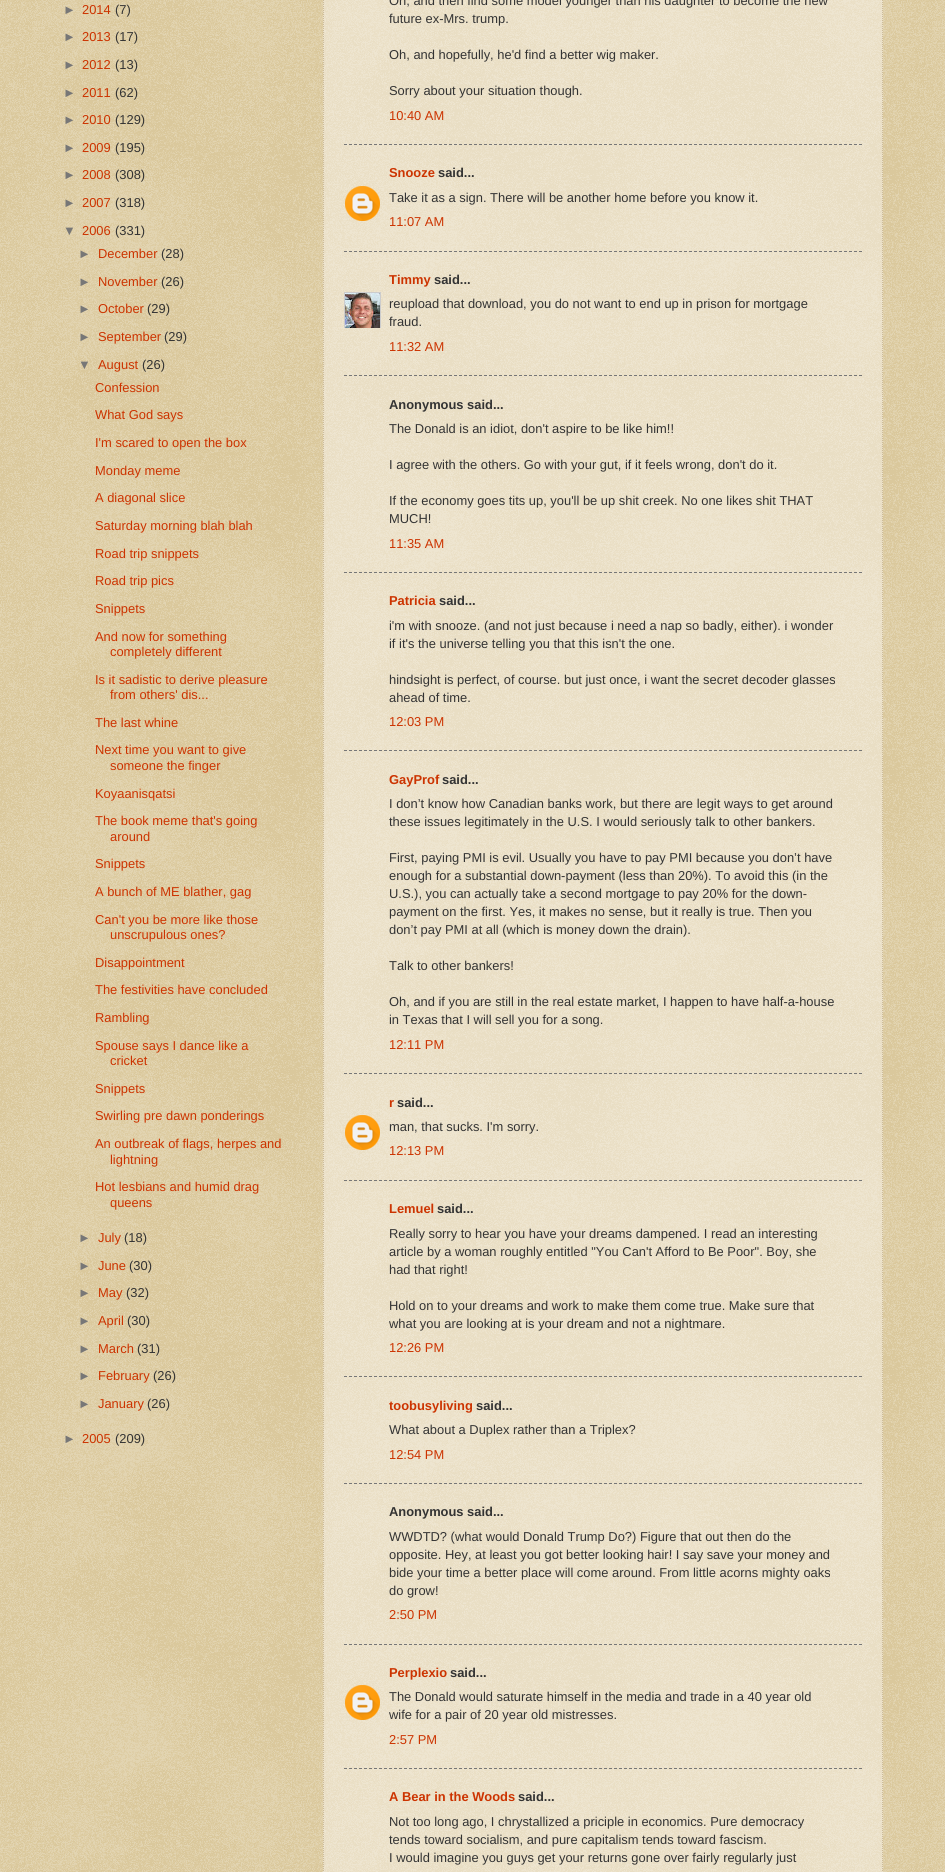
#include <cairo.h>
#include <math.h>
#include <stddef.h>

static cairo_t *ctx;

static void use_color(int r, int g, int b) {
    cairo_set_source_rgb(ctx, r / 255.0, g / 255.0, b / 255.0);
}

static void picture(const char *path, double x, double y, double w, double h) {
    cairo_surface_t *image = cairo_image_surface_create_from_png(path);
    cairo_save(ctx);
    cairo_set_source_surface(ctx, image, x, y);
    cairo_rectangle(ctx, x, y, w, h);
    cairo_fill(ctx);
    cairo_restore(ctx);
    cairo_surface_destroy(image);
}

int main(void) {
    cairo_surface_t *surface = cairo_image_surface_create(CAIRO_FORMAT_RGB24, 945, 1872);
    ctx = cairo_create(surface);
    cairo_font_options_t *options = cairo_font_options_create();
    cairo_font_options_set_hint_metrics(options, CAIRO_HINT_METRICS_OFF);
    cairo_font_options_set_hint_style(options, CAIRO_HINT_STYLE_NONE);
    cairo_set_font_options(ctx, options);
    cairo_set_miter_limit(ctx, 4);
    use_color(192, 161, 84);
    cairo_paint(ctx);
    picture("img1.png", 0, 0, 945, 1872);
    cairo_select_font_face(ctx, "Liberation Sans", CAIRO_FONT_SLANT_NORMAL, CAIRO_FONT_WEIGHT_NORMAL);
    cairo_set_font_size(ctx, 12.9);
    use_color(119, 119, 119);
    cairo_move_to(ctx, 63, 14);
    cairo_show_text(ctx, "►");
    use_color(204, 51, 0);
    cairo_move_to(ctx, 82, 14);
    cairo_show_text(ctx, "2014");
    use_color(51, 51, 51);
    cairo_move_to(ctx, 115, 14);
    cairo_show_text(ctx, "(7)");
    use_color(119, 119, 119);
    cairo_move_to(ctx, 63, 41);
    cairo_show_text(ctx, "►");
    use_color(204, 51, 0);
    cairo_move_to(ctx, 82, 41);
    cairo_show_text(ctx, "2013");
    use_color(51, 51, 51);
    cairo_move_to(ctx, 115, 41);
    cairo_show_text(ctx, "(17)");
    use_color(119, 119, 119);
    cairo_move_to(ctx, 63, 69);
    cairo_show_text(ctx, "►");
    use_color(204, 51, 0);
    cairo_move_to(ctx, 82, 69);
    cairo_show_text(ctx, "2012");
    use_color(51, 51, 51);
    cairo_move_to(ctx, 115, 69);
    cairo_show_text(ctx, "(13)");
    use_color(119, 119, 119);
    cairo_move_to(ctx, 63, 97);
    cairo_show_text(ctx, "►");
    use_color(204, 51, 0);
    cairo_move_to(ctx, 82, 97);
    cairo_show_text(ctx, "2011");
    use_color(51, 51, 51);
    cairo_move_to(ctx, 115, 97);
    cairo_show_text(ctx, "(62)");
    use_color(119, 119, 119);
    cairo_move_to(ctx, 63, 124);
    cairo_show_text(ctx, "►");
    use_color(204, 51, 0);
    cairo_move_to(ctx, 82, 124);
    cairo_show_text(ctx, "2010");
    use_color(51, 51, 51);
    cairo_move_to(ctx, 115, 124);
    cairo_show_text(ctx, "(129)");
    use_color(119, 119, 119);
    cairo_move_to(ctx, 63, 152);
    cairo_show_text(ctx, "►");
    use_color(204, 51, 0);
    cairo_move_to(ctx, 82, 152);
    cairo_show_text(ctx, "2009");
    use_color(51, 51, 51);
    cairo_move_to(ctx, 115, 152);
    cairo_show_text(ctx, "(195)");
    use_color(119, 119, 119);
    cairo_move_to(ctx, 63, 179);
    cairo_show_text(ctx, "►");
    use_color(204, 51, 0);
    cairo_move_to(ctx, 82, 179);
    cairo_show_text(ctx, "2008");
    use_color(51, 51, 51);
    cairo_move_to(ctx, 115, 179);
    cairo_show_text(ctx, "(308)");
    use_color(119, 119, 119);
    cairo_move_to(ctx, 63, 207);
    cairo_show_text(ctx, "►");
    use_color(204, 51, 0);
    cairo_move_to(ctx, 82, 207);
    cairo_show_text(ctx, "2007");
    use_color(51, 51, 51);
    cairo_move_to(ctx, 115, 207);
    cairo_show_text(ctx, "(318)");
    use_color(119, 119, 119);
    cairo_move_to(ctx, 63, 235);
    cairo_show_text(ctx, "▼");
    use_color(204, 51, 0);
    cairo_move_to(ctx, 82, 235);
    cairo_show_text(ctx, "2006");
    use_color(51, 51, 51);
    cairo_move_to(ctx, 115, 235);
    cairo_show_text(ctx, "(331)");
    use_color(119, 119, 119);
    cairo_move_to(ctx, 78, 258);
    cairo_show_text(ctx, "►");
    use_color(204, 51, 0);
    cairo_move_to(ctx, 98, 258);
    cairo_show_text(ctx, "December");
    use_color(51, 51, 51);
    cairo_move_to(ctx, 161, 258);
    cairo_show_text(ctx, "(28)");
    use_color(119, 119, 119);
    cairo_move_to(ctx, 78, 286);
    cairo_show_text(ctx, "►");
    use_color(204, 51, 0);
    cairo_move_to(ctx, 98, 286);
    cairo_show_text(ctx, "November");
    use_color(51, 51, 51);
    cairo_move_to(ctx, 161, 286);
    cairo_show_text(ctx, "(26)");
    use_color(119, 119, 119);
    cairo_move_to(ctx, 78, 313);
    cairo_show_text(ctx, "►");
    use_color(204, 51, 0);
    cairo_move_to(ctx, 98, 313);
    cairo_show_text(ctx, "October");
    use_color(51, 51, 51);
    cairo_move_to(ctx, 147, 313);
    cairo_show_text(ctx, "(29)");
    use_color(119, 119, 119);
    cairo_move_to(ctx, 78, 341);
    cairo_show_text(ctx, "►");
    use_color(204, 51, 0);
    cairo_move_to(ctx, 98, 341);
    cairo_show_text(ctx, "September");
    use_color(51, 51, 51);
    cairo_move_to(ctx, 164, 341);
    cairo_show_text(ctx, "(29)");
    use_color(119, 119, 119);
    cairo_move_to(ctx, 78, 369);
    cairo_show_text(ctx, "▼");
    use_color(204, 51, 0);
    cairo_move_to(ctx, 98, 369);
    cairo_show_text(ctx, "August");
    use_color(51, 51, 51);
    cairo_move_to(ctx, 142, 369);
    cairo_show_text(ctx, "(26)");
    use_color(204, 51, 0);
    cairo_move_to(ctx, 95, 392);
    cairo_show_text(ctx, "Confession");
    cairo_move_to(ctx, 95, 419);
    cairo_show_text(ctx, "What God says");
    cairo_move_to(ctx, 95, 447);
    cairo_show_text(ctx, "I'm scared to open the box");
    cairo_move_to(ctx, 95, 475);
    cairo_show_text(ctx, "Monday meme");
    cairo_move_to(ctx, 95, 502);
    cairo_show_text(ctx, "A diagonal slice");
    cairo_move_to(ctx, 95, 530);
    cairo_show_text(ctx, "Saturday morning blah blah");
    cairo_move_to(ctx, 95, 558);
    cairo_show_text(ctx, "Road trip snippets");
    cairo_move_to(ctx, 95, 585);
    cairo_show_text(ctx, "Road trip pics");
    cairo_move_to(ctx, 95, 613);
    cairo_show_text(ctx, "Snippets");
    cairo_move_to(ctx, 95, 641);
    cairo_show_text(ctx, "And now for something");
    cairo_move_to(ctx, 110, 656);
    cairo_show_text(ctx, "completely different");
    cairo_move_to(ctx, 95, 684);
    cairo_show_text(ctx, "Is it sadistic to derive pleasure");
    cairo_move_to(ctx, 110, 699);
    cairo_show_text(ctx, "from others' dis...");
    cairo_move_to(ctx, 95, 727);
    cairo_show_text(ctx, "The last whine");
    cairo_move_to(ctx, 95, 754);
    cairo_show_text(ctx, "Next time you want to give");
    cairo_move_to(ctx, 110, 770);
    cairo_show_text(ctx, "someone the finger");
    cairo_move_to(ctx, 95, 798);
    cairo_show_text(ctx, "Koyaanisqatsi");
    cairo_move_to(ctx, 95, 825);
    cairo_show_text(ctx, "The book meme that's going");
    cairo_move_to(ctx, 110, 841);
    cairo_show_text(ctx, "around");
    cairo_move_to(ctx, 95, 868);
    cairo_show_text(ctx, "Snippets");
    cairo_move_to(ctx, 95, 896);
    cairo_show_text(ctx, "A bunch of ME blather, gag");
    cairo_move_to(ctx, 95, 924);
    cairo_show_text(ctx, "Can't you be more like those");
    cairo_move_to(ctx, 110, 939);
    cairo_show_text(ctx, "unscrupulous ones?");
    cairo_move_to(ctx, 95, 967);
    cairo_show_text(ctx, "Disappointment");
    cairo_move_to(ctx, 95, 994);
    cairo_show_text(ctx, "The festivities have concluded");
    cairo_move_to(ctx, 95, 1022);
    cairo_show_text(ctx, "Rambling");
    cairo_move_to(ctx, 95, 1050);
    cairo_show_text(ctx, "Spouse says I dance like a");
    cairo_move_to(ctx, 110, 1065);
    cairo_show_text(ctx, "cricket");
    cairo_move_to(ctx, 95, 1093);
    cairo_show_text(ctx, "Snippets");
    cairo_move_to(ctx, 95, 1120);
    cairo_show_text(ctx, "Swirling pre dawn ponderings");
    cairo_move_to(ctx, 95, 1148);
    cairo_show_text(ctx, "An outbreak of flags, herpes and");
    cairo_move_to(ctx, 110, 1164);
    cairo_show_text(ctx, "lightning");
    cairo_move_to(ctx, 95, 1191);
    cairo_show_text(ctx, "Hot lesbians and humid drag");
    cairo_move_to(ctx, 110, 1207);
    cairo_show_text(ctx, "queens");
    use_color(119, 119, 119);
    cairo_move_to(ctx, 78, 1242);
    cairo_show_text(ctx, "►");
    use_color(204, 51, 0);
    cairo_move_to(ctx, 98, 1242);
    cairo_show_text(ctx, "July");
    use_color(51, 51, 51);
    cairo_move_to(ctx, 124, 1242);
    cairo_show_text(ctx, "(18)");
    use_color(119, 119, 119);
    cairo_move_to(ctx, 78, 1270);
    cairo_show_text(ctx, "►");
    use_color(204, 51, 0);
    cairo_move_to(ctx, 98, 1270);
    cairo_show_text(ctx, "June");
    use_color(51, 51, 51);
    cairo_move_to(ctx, 129, 1270);
    cairo_show_text(ctx, "(30)");
    use_color(119, 119, 119);
    cairo_move_to(ctx, 78, 1297);
    cairo_show_text(ctx, "►");
    use_color(204, 51, 0);
    cairo_move_to(ctx, 98, 1297);
    cairo_show_text(ctx, "May");
    use_color(51, 51, 51);
    cairo_move_to(ctx, 126, 1297);
    cairo_show_text(ctx, "(32)");
    use_color(119, 119, 119);
    cairo_move_to(ctx, 78, 1325);
    cairo_show_text(ctx, "►");
    use_color(204, 51, 0);
    cairo_move_to(ctx, 98, 1325);
    cairo_show_text(ctx, "April");
    use_color(51, 51, 51);
    cairo_move_to(ctx, 127, 1325);
    cairo_show_text(ctx, "(30)");
    use_color(119, 119, 119);
    cairo_move_to(ctx, 78, 1353);
    cairo_show_text(ctx, "►");
    use_color(204, 51, 0);
    cairo_move_to(ctx, 98, 1353);
    cairo_show_text(ctx, "March");
    use_color(51, 51, 51);
    cairo_move_to(ctx, 137, 1353);
    cairo_show_text(ctx, "(31)");
    use_color(119, 119, 119);
    cairo_move_to(ctx, 78, 1380);
    cairo_show_text(ctx, "►");
    use_color(204, 51, 0);
    cairo_move_to(ctx, 98, 1380);
    cairo_show_text(ctx, "February");
    use_color(51, 51, 51);
    cairo_move_to(ctx, 153, 1380);
    cairo_show_text(ctx, "(26)");
    use_color(119, 119, 119);
    cairo_move_to(ctx, 78, 1408);
    cairo_show_text(ctx, "►");
    use_color(204, 51, 0);
    cairo_move_to(ctx, 98, 1408);
    cairo_show_text(ctx, "January");
    use_color(51, 51, 51);
    cairo_move_to(ctx, 147, 1408);
    cairo_show_text(ctx, "(26)");
    use_color(119, 119, 119);
    cairo_move_to(ctx, 63, 1443);
    cairo_show_text(ctx, "►");
    use_color(204, 51, 0);
    cairo_move_to(ctx, 82, 1443);
    cairo_show_text(ctx, "2005");
    use_color(51, 51, 51);
    cairo_move_to(ctx, 115, 1443);
    cairo_show_text(ctx, "(209)");
    cairo_set_source_rgba(ctx, 1, 1, 1, 0.4);
    cairo_rectangle(ctx, 323, 0, 560, 1872);
    cairo_fill(ctx);
    cairo_new_path(ctx);
    cairo_move_to(ctx, 882.5, -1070);
    cairo_line_to(ctx, 882.5, 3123);
    use_color(204, 187, 153);
    cairo_set_line_width(ctx, 1);
    cairo_set_dash(ctx, (double[]){1, 1}, 2, 0);
    cairo_stroke(ctx);
    cairo_new_path(ctx);
    cairo_move_to(ctx, 323.5, -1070);
    cairo_line_to(ctx, 323.5, 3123);
    cairo_stroke(ctx);
    use_color(51, 51, 51);
    cairo_move_to(ctx, 389, 5);
    cairo_show_text(ctx, "Oh, and then find some model younger than his daughter to become the new");
    cairo_move_to(ctx, 389, 23);
    cairo_show_text(ctx, "future ex-Mrs. trump.");
    cairo_move_to(ctx, 389, 59);
    cairo_show_text(ctx, "Oh, and hopefully, he'd find a better wig maker.");
    cairo_move_to(ctx, 389, 95);
    cairo_show_text(ctx, "Sorry about your situation though.");
    use_color(204, 51, 0);
    cairo_move_to(ctx, 389, 120);
    cairo_show_text(ctx, "10:40 AM");
    cairo_new_path(ctx);
    cairo_move_to(ctx, 344, 144.5);
    cairo_line_to(ctx, 862, 144.5);
    use_color(119, 119, 119);
    cairo_set_dash(ctx, (double[]){3, 2}, 2, 0);
    cairo_stroke(ctx);
    cairo_select_font_face(ctx, "Liberation Sans", CAIRO_FONT_SLANT_NORMAL, CAIRO_FONT_WEIGHT_BOLD);
    use_color(204, 51, 0);
    cairo_move_to(ctx, 389, 177);
    cairo_show_text(ctx, "Snooze");
    use_color(51, 51, 51);
    cairo_move_to(ctx, 438, 177);
    cairo_show_text(ctx, "said...");
    picture("img2.png", 345, 186, 35, 35);
    cairo_select_font_face(ctx, "Liberation Sans", CAIRO_FONT_SLANT_NORMAL, CAIRO_FONT_WEIGHT_NORMAL);
    cairo_move_to(ctx, 389, 202);
    cairo_show_text(ctx, "Take it as a sign. There will be another home before you know it.");
    use_color(204, 51, 0);
    cairo_move_to(ctx, 389, 226);
    cairo_show_text(ctx, "11:07 AM");
    cairo_new_path(ctx);
    cairo_move_to(ctx, 344, 251.5);
    cairo_line_to(ctx, 862, 251.5);
    use_color(119, 119, 119);
    cairo_stroke(ctx);
    cairo_select_font_face(ctx, "Liberation Sans", CAIRO_FONT_SLANT_NORMAL, CAIRO_FONT_WEIGHT_BOLD);
    use_color(204, 51, 0);
    cairo_move_to(ctx, 389, 284);
    cairo_show_text(ctx, "Timmy");
    use_color(51, 51, 51);
    cairo_move_to(ctx, 434, 284);
    cairo_show_text(ctx, "said...");
    cairo_save(ctx);
    cairo_rectangle(ctx, 344, 292, 37, 36);
    cairo_clip(ctx);
    cairo_rectangle(ctx, 344.5, 292.5, 36, 36);
    use_color(204, 204, 204);
    cairo_set_dash(ctx, NULL, 0, 0);
    cairo_stroke(ctx);
    cairo_restore(ctx);
    picture("img3.png", 345, 293, 35, 35);
    cairo_select_font_face(ctx, "Liberation Sans", CAIRO_FONT_SLANT_NORMAL, CAIRO_FONT_WEIGHT_NORMAL);
    cairo_move_to(ctx, 389, 308);
    cairo_show_text(ctx, "reupload that download, you do not want to end up in prison for mortgage");
    cairo_move_to(ctx, 389, 326);
    cairo_show_text(ctx, "fraud.");
    use_color(204, 51, 0);
    cairo_move_to(ctx, 389, 351);
    cairo_show_text(ctx, "11:32 AM");
    cairo_new_path(ctx);
    cairo_move_to(ctx, 344, 375.5);
    cairo_line_to(ctx, 862, 375.5);
    use_color(119, 119, 119);
    cairo_stroke(ctx);
    cairo_select_font_face(ctx, "Liberation Sans", CAIRO_FONT_SLANT_NORMAL, CAIRO_FONT_WEIGHT_BOLD);
    use_color(51, 51, 51);
    cairo_move_to(ctx, 389, 409);
    cairo_show_text(ctx, "Anonymous said...");
    cairo_select_font_face(ctx, "Liberation Sans", CAIRO_FONT_SLANT_NORMAL, CAIRO_FONT_WEIGHT_NORMAL);
    cairo_move_to(ctx, 389, 433);
    cairo_show_text(ctx, "The Donald is an idiot, don't aspire to be like him!!");
    cairo_move_to(ctx, 389, 469);
    cairo_show_text(ctx, "I agree with the others. Go with your gut, if it feels wrong, don't do it.");
    cairo_move_to(ctx, 389, 505);
    cairo_show_text(ctx, "If the economy goes tits up, you'll be up shit creek. No one likes shit THAT");
    cairo_move_to(ctx, 389, 523);
    cairo_show_text(ctx, "MUCH!");
    use_color(204, 51, 0);
    cairo_move_to(ctx, 389, 548);
    cairo_show_text(ctx, "11:35 AM");
    cairo_new_path(ctx);
    cairo_move_to(ctx, 344, 572.5);
    cairo_line_to(ctx, 862, 572.5);
    use_color(119, 119, 119);
    cairo_stroke(ctx);
    cairo_select_font_face(ctx, "Liberation Sans", CAIRO_FONT_SLANT_NORMAL, CAIRO_FONT_WEIGHT_BOLD);
    use_color(204, 51, 0);
    cairo_move_to(ctx, 389, 605);
    cairo_show_text(ctx, "Patricia");
    use_color(51, 51, 51);
    cairo_move_to(ctx, 439, 605);
    cairo_show_text(ctx, "said...");
    cairo_select_font_face(ctx, "Liberation Sans", CAIRO_FONT_SLANT_NORMAL, CAIRO_FONT_WEIGHT_NORMAL);
    cairo_move_to(ctx, 389, 630);
    cairo_show_text(ctx, "i'm with snooze. (and not just because i need a nap so badly, either). i wonder");
    cairo_move_to(ctx, 389, 648);
    cairo_show_text(ctx, "if it's the universe telling you that this isn't the one.");
    cairo_move_to(ctx, 389, 684);
    cairo_show_text(ctx, "hindsight is perfect, of course. but just once, i want the secret decoder glasses");
    cairo_move_to(ctx, 389, 702);
    cairo_show_text(ctx, "ahead of time.");
    use_color(204, 51, 0);
    cairo_move_to(ctx, 389, 726);
    cairo_show_text(ctx, "12:03 PM");
    cairo_new_path(ctx);
    cairo_move_to(ctx, 344, 750.5);
    cairo_line_to(ctx, 862, 750.5);
    use_color(119, 119, 119);
    cairo_stroke(ctx);
    cairo_select_font_face(ctx, "Liberation Sans", CAIRO_FONT_SLANT_NORMAL, CAIRO_FONT_WEIGHT_BOLD);
    use_color(204, 51, 0);
    cairo_move_to(ctx, 389, 784);
    cairo_show_text(ctx, "GayProf");
    use_color(51, 51, 51);
    cairo_move_to(ctx, 442, 784);
    cairo_show_text(ctx, "said...");
    cairo_select_font_face(ctx, "Liberation Sans", CAIRO_FONT_SLANT_NORMAL, CAIRO_FONT_WEIGHT_NORMAL);
    cairo_move_to(ctx, 389, 808);
    cairo_show_text(ctx, "I don’t know how Canadian banks work, but there are legit ways to get around");
    cairo_move_to(ctx, 389, 826);
    cairo_show_text(ctx, "these issues legitimately in the U.S. I would seriously talk to other bankers.");
    cairo_move_to(ctx, 389, 862);
    cairo_show_text(ctx, "First, paying PMI is evil. Usually you have to pay PMI because you don’t have");
    cairo_move_to(ctx, 389, 880);
    cairo_show_text(ctx, "enough for a substantial down-payment (less than 20%). To avoid this (in the");
    cairo_move_to(ctx, 389, 898);
    cairo_show_text(ctx, "U.S.), you can actually take a second mortgage to pay 20% for the down-");
    cairo_move_to(ctx, 389, 916);
    cairo_show_text(ctx, "payment on the first. Yes, it makes no sense, but it really is true. Then you");
    cairo_move_to(ctx, 389, 934);
    cairo_show_text(ctx, "don’t pay PMI at all (which is money down the drain).");
    cairo_move_to(ctx, 389, 970);
    cairo_show_text(ctx, "Talk to other bankers!");
    cairo_move_to(ctx, 389, 1006);
    cairo_show_text(ctx, "Oh, and if you are still in the real estate market, I happen to have half-a-house");
    cairo_move_to(ctx, 389, 1024);
    cairo_show_text(ctx, "in Texas that I will sell you for a song.");
    use_color(204, 51, 0);
    cairo_move_to(ctx, 389, 1049);
    cairo_show_text(ctx, "12:11 PM");
    cairo_new_path(ctx);
    cairo_move_to(ctx, 344, 1073.5);
    cairo_line_to(ctx, 862, 1073.5);
    use_color(119, 119, 119);
    cairo_stroke(ctx);
    cairo_select_font_face(ctx, "Liberation Sans", CAIRO_FONT_SLANT_NORMAL, CAIRO_FONT_WEIGHT_BOLD);
    use_color(204, 51, 0);
    cairo_move_to(ctx, 389, 1107);
    cairo_show_text(ctx, "r");
    use_color(51, 51, 51);
    cairo_move_to(ctx, 397, 1107);
    cairo_show_text(ctx, "said...");
    picture("img4.png", 345, 1115, 35, 35);
    cairo_select_font_face(ctx, "Liberation Sans", CAIRO_FONT_SLANT_NORMAL, CAIRO_FONT_WEIGHT_NORMAL);
    cairo_move_to(ctx, 389, 1131);
    cairo_show_text(ctx, "man, that sucks. I'm sorry.");
    use_color(204, 51, 0);
    cairo_move_to(ctx, 389, 1155);
    cairo_show_text(ctx, "12:13 PM");
    cairo_new_path(ctx);
    cairo_move_to(ctx, 344, 1180.5);
    cairo_line_to(ctx, 862, 1180.5);
    use_color(119, 119, 119);
    cairo_stroke(ctx);
    cairo_select_font_face(ctx, "Liberation Sans", CAIRO_FONT_SLANT_NORMAL, CAIRO_FONT_WEIGHT_BOLD);
    use_color(204, 51, 0);
    cairo_move_to(ctx, 389, 1213);
    cairo_show_text(ctx, "Lemuel");
    use_color(51, 51, 51);
    cairo_move_to(ctx, 437, 1213);
    cairo_show_text(ctx, "said...");
    cairo_select_font_face(ctx, "Liberation Sans", CAIRO_FONT_SLANT_NORMAL, CAIRO_FONT_WEIGHT_NORMAL);
    cairo_move_to(ctx, 389, 1238);
    cairo_show_text(ctx, "Really sorry to hear you have your dreams dampened. I read an interesting");
    cairo_move_to(ctx, 389, 1256);
    cairo_show_text(ctx, "article by a woman roughly entitled \"You Can't Afford to Be Poor\". Boy, she");
    cairo_move_to(ctx, 389, 1274);
    cairo_show_text(ctx, "had that right!");
    cairo_move_to(ctx, 389, 1310);
    cairo_show_text(ctx, "Hold on to your dreams and work to make them come true. Make sure that");
    cairo_move_to(ctx, 389, 1328);
    cairo_show_text(ctx, "what you are looking at is your dream and not a nightmare.");
    use_color(204, 51, 0);
    cairo_move_to(ctx, 389, 1352);
    cairo_show_text(ctx, "12:26 PM");
    cairo_new_path(ctx);
    cairo_move_to(ctx, 344, 1376.5);
    cairo_line_to(ctx, 862, 1376.5);
    use_color(119, 119, 119);
    cairo_stroke(ctx);
    cairo_select_font_face(ctx, "Liberation Sans", CAIRO_FONT_SLANT_NORMAL, CAIRO_FONT_WEIGHT_BOLD);
    use_color(204, 51, 0);
    cairo_move_to(ctx, 389, 1410);
    cairo_show_text(ctx, "toobusyliving");
    use_color(51, 51, 51);
    cairo_move_to(ctx, 476, 1410);
    cairo_show_text(ctx, "said...");
    cairo_select_font_face(ctx, "Liberation Sans", CAIRO_FONT_SLANT_NORMAL, CAIRO_FONT_WEIGHT_NORMAL);
    cairo_move_to(ctx, 389, 1434);
    cairo_show_text(ctx, "What about a Duplex rather than a Triplex?");
    use_color(204, 51, 0);
    cairo_move_to(ctx, 389, 1459);
    cairo_show_text(ctx, "12:54 PM");
    cairo_new_path(ctx);
    cairo_move_to(ctx, 344, 1483.5);
    cairo_line_to(ctx, 862, 1483.5);
    use_color(119, 119, 119);
    cairo_stroke(ctx);
    cairo_select_font_face(ctx, "Liberation Sans", CAIRO_FONT_SLANT_NORMAL, CAIRO_FONT_WEIGHT_BOLD);
    use_color(51, 51, 51);
    cairo_move_to(ctx, 389, 1516);
    cairo_show_text(ctx, "Anonymous said...");
    cairo_select_font_face(ctx, "Liberation Sans", CAIRO_FONT_SLANT_NORMAL, CAIRO_FONT_WEIGHT_NORMAL);
    cairo_move_to(ctx, 389, 1541);
    cairo_show_text(ctx, "WWDTD? (what would Donald Trump Do?) Figure that out then do the");
    cairo_move_to(ctx, 389, 1559);
    cairo_show_text(ctx, "opposite. Hey, at least you got better looking hair! I say save your money and");
    cairo_move_to(ctx, 389, 1577);
    cairo_show_text(ctx, "bide your time a better place will come around. From little acorns mighty oaks");
    cairo_move_to(ctx, 389, 1595);
    cairo_show_text(ctx, "do grow!");
    use_color(204, 51, 0);
    cairo_move_to(ctx, 389, 1619);
    cairo_show_text(ctx, "2:50 PM");
    cairo_new_path(ctx);
    cairo_move_to(ctx, 344, 1644.5);
    cairo_line_to(ctx, 862, 1644.5);
    use_color(119, 119, 119);
    cairo_stroke(ctx);
    cairo_select_font_face(ctx, "Liberation Sans", CAIRO_FONT_SLANT_NORMAL, CAIRO_FONT_WEIGHT_BOLD);
    use_color(204, 51, 0);
    cairo_move_to(ctx, 389, 1677);
    cairo_show_text(ctx, "Perplexio");
    use_color(51, 51, 51);
    cairo_move_to(ctx, 450, 1677);
    cairo_show_text(ctx, "said...");
    picture("img5.png", 345, 1685, 35, 35);
    cairo_select_font_face(ctx, "Liberation Sans", CAIRO_FONT_SLANT_NORMAL, CAIRO_FONT_WEIGHT_NORMAL);
    cairo_move_to(ctx, 389, 1701);
    cairo_show_text(ctx, "The Donald would saturate himself in the media and trade in a 40 year old");
    cairo_move_to(ctx, 389, 1719);
    cairo_show_text(ctx, "wife for a pair of 20 year old mistresses.");
    use_color(204, 51, 0);
    cairo_move_to(ctx, 389, 1744);
    cairo_show_text(ctx, "2:57 PM");
    cairo_new_path(ctx);
    cairo_move_to(ctx, 344, 1768.5);
    cairo_line_to(ctx, 862, 1768.5);
    use_color(119, 119, 119);
    cairo_stroke(ctx);
    cairo_select_font_face(ctx, "Liberation Sans", CAIRO_FONT_SLANT_NORMAL, CAIRO_FONT_WEIGHT_BOLD);
    use_color(204, 51, 0);
    cairo_move_to(ctx, 389, 1801);
    cairo_show_text(ctx, "A Bear in the Woods");
    use_color(51, 51, 51);
    cairo_move_to(ctx, 518, 1801);
    cairo_show_text(ctx, "said...");
    cairo_select_font_face(ctx, "Liberation Sans", CAIRO_FONT_SLANT_NORMAL, CAIRO_FONT_WEIGHT_NORMAL);
    cairo_move_to(ctx, 389, 1826);
    cairo_show_text(ctx, "Not too long ago, I chrystallized a priciple in economics. Pure democracy");
    cairo_move_to(ctx, 389, 1844);
    cairo_show_text(ctx, "tends toward socialism, and pure capitalism tends toward fascism.");
    cairo_move_to(ctx, 389, 1862);
    cairo_show_text(ctx, "I would imagine you guys get your returns gone over fairly regularly just");
    cairo_surface_write_to_png(surface, "result.png");
    cairo_font_options_destroy(options);
    cairo_destroy(ctx);
    cairo_surface_destroy(surface);
    return 0;
}
